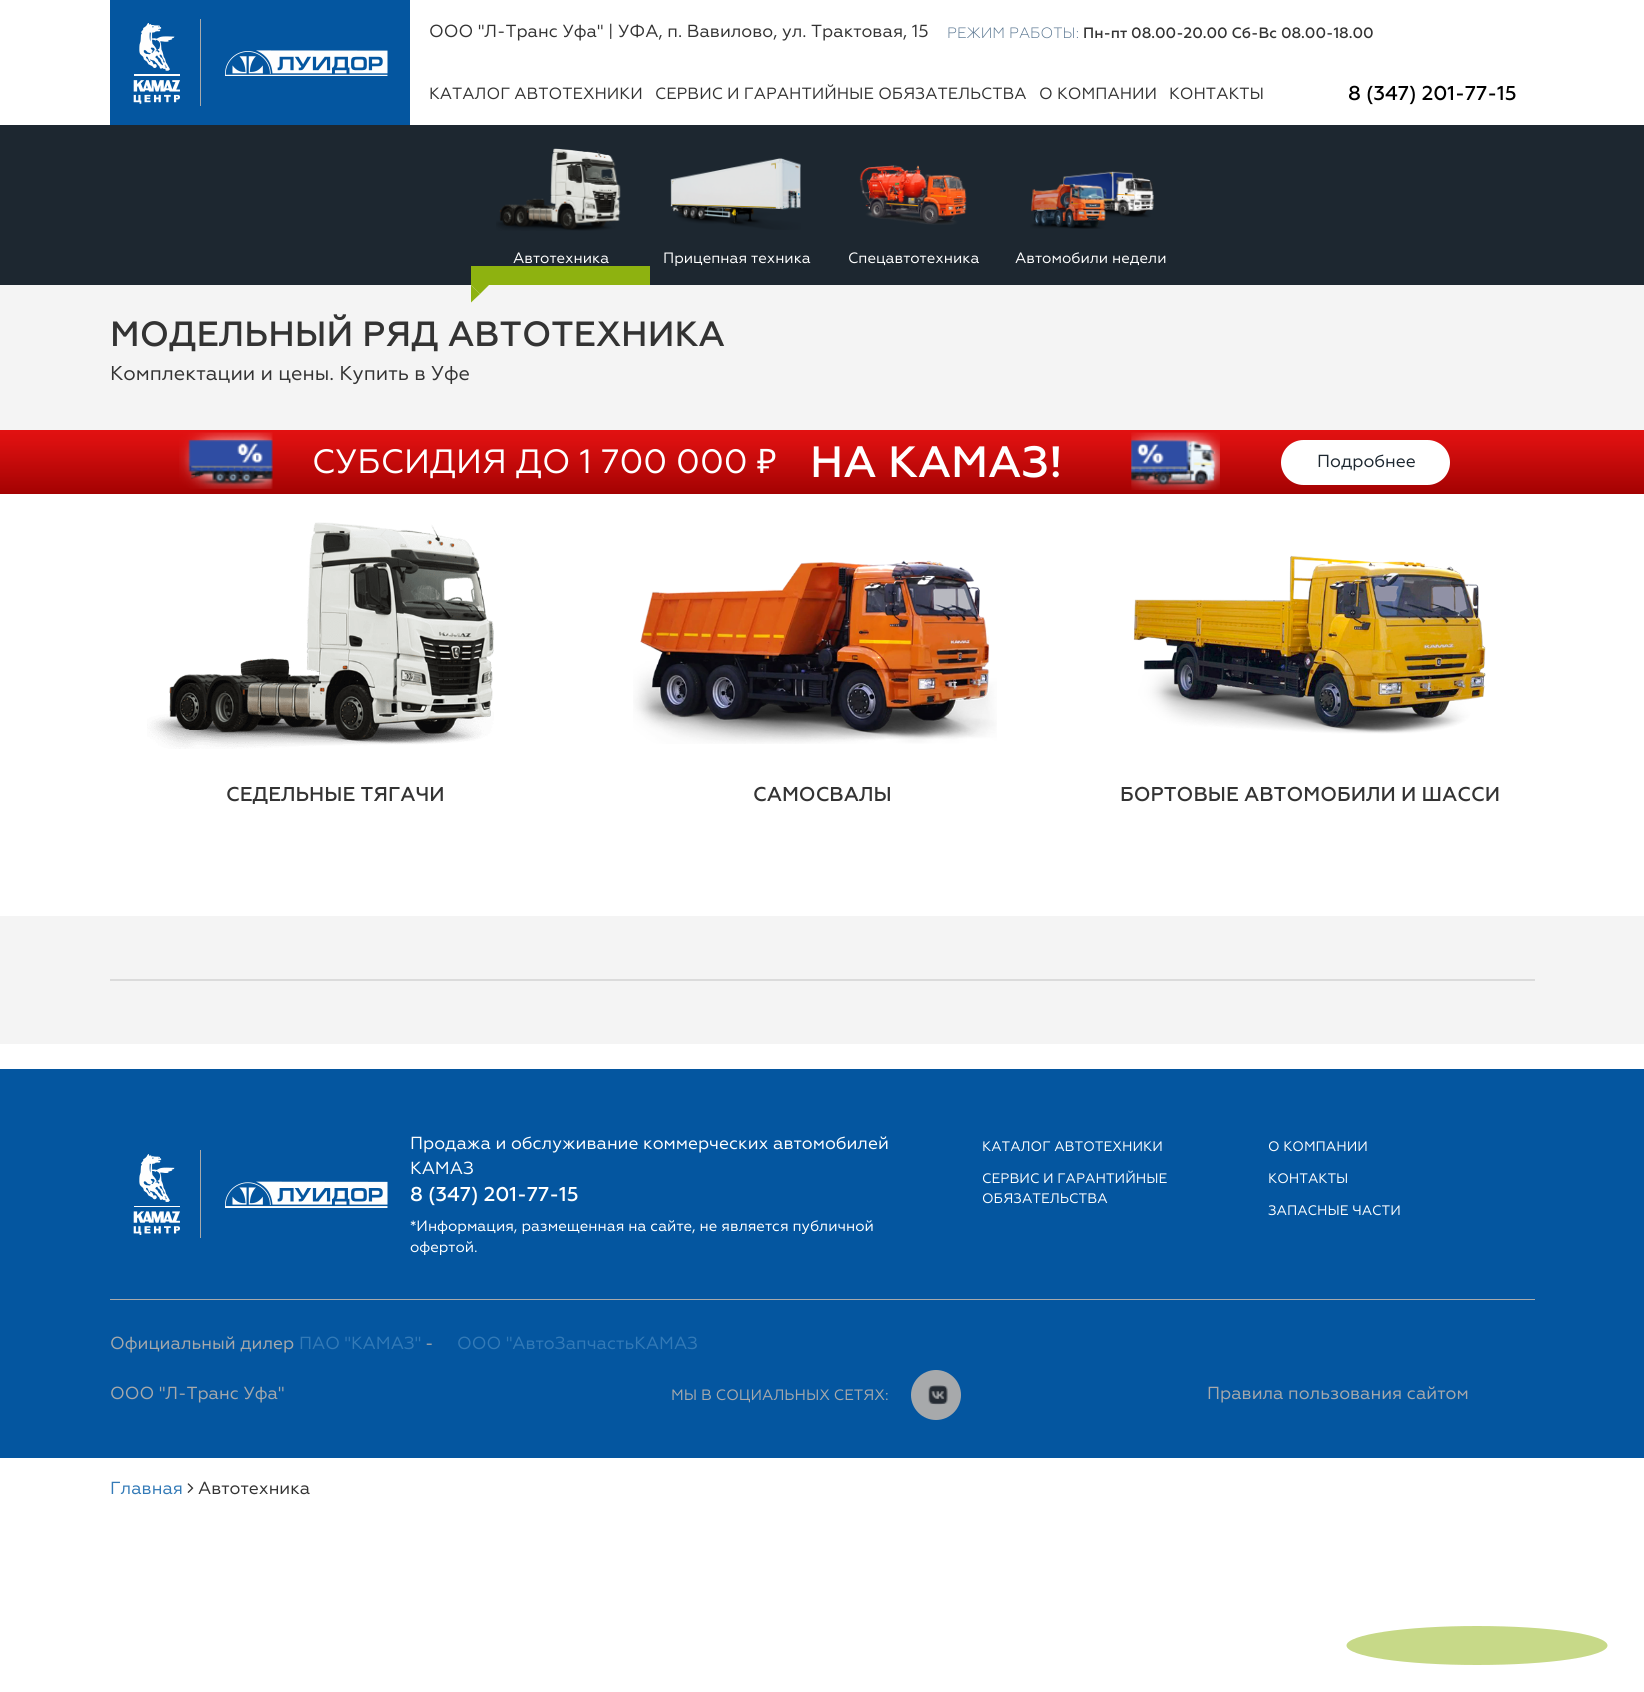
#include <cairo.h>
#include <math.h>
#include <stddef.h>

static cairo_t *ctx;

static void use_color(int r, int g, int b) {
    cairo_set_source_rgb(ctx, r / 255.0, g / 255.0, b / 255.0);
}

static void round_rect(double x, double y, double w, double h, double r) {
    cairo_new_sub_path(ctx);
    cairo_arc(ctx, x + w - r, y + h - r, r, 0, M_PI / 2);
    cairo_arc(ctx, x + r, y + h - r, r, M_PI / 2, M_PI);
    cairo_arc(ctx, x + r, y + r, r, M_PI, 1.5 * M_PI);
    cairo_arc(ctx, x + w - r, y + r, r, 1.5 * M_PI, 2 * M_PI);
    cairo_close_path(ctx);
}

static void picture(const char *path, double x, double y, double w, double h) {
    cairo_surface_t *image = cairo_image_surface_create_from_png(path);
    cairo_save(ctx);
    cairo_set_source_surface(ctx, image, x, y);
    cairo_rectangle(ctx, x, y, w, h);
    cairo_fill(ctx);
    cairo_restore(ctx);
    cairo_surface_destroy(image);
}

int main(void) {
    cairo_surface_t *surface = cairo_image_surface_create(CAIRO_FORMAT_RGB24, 1644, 1692);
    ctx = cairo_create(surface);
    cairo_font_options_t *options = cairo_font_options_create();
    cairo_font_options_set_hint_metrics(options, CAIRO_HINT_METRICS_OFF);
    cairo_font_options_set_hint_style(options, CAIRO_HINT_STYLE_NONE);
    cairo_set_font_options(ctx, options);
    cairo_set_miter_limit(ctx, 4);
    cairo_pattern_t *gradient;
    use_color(255, 255, 255);
    cairo_paint(ctx);
    use_color(4, 86, 160);
    cairo_rectangle(ctx, 110, 0, 300, 125);
    cairo_fill(ctx);
    use_color(167, 169, 171);
    cairo_rectangle(ctx, 200, 19, 1, 87);
    cairo_fill(ctx);
    picture("img1.png", 133, 23, 47, 81);
    picture("img2.png", 225, 50, 163, 26);
    cairo_select_font_face(ctx, "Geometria", CAIRO_FONT_SLANT_NORMAL, CAIRO_FONT_WEIGHT_NORMAL);
    cairo_set_font_size(ctx, 17.5);
    use_color(51, 51, 51);
    cairo_move_to(ctx, 429, 37);
    cairo_show_text(ctx, "ООО \"Л-Транс Уфа\" | УФА, п. Вавилово, ул. Трактовая, 15");
    cairo_select_font_face(ctx, "Geometria Light", CAIRO_FONT_SLANT_NORMAL, CAIRO_FONT_WEIGHT_NORMAL);
    cairo_set_font_size(ctx, 15);
    use_color(87, 116, 143);
    cairo_move_to(ctx, 947, 38);
    cairo_show_text(ctx, "РЕЖИМ РАБОТЫ:");
    cairo_select_font_face(ctx, "Geometria Medium", CAIRO_FONT_SLANT_NORMAL, CAIRO_FONT_WEIGHT_NORMAL);
    use_color(51, 51, 51);
    cairo_move_to(ctx, 1083, 38);
    cairo_show_text(ctx, "Пн-пт 08.00-20.00 Сб-Вс 08.00-18.00");
    cairo_set_font_size(ctx, 20);
    use_color(0, 0, 0);
    cairo_move_to(ctx, 1348, 100);
    cairo_show_text(ctx, "8 (347) 201-77-15");
    cairo_select_font_face(ctx, "Geometria", CAIRO_FONT_SLANT_NORMAL, CAIRO_FONT_WEIGHT_NORMAL);
    cairo_set_font_size(ctx, 16.25);
    use_color(51, 51, 51);
    cairo_move_to(ctx, 429, 99);
    cairo_show_text(ctx, "КАТАЛОГ АВТОТЕХНИКИ");
    cairo_move_to(ctx, 655, 99);
    cairo_show_text(ctx, "СЕРВИС И ГАРАНТИЙНЫЕ ОБЯЗАТЕЛЬСТВА");
    cairo_move_to(ctx, 1039, 99);
    cairo_show_text(ctx, "О КОМПАНИИ");
    cairo_move_to(ctx, 1169, 99);
    cairo_show_text(ctx, "КОНТАКТЫ");
    use_color(29, 39, 48);
    cairo_rectangle(ctx, 0, 125, 1644, 160);
    cairo_fill(ctx);
    use_color(142, 178, 16);
    cairo_rectangle(ctx, 471, 266, 179, 19);
    cairo_fill(ctx);
    picture("img3.png", 496, 148, 125, 83);
    cairo_set_font_size(ctx, 15);
    use_color(255, 255, 255);
    cairo_move_to(ctx, 513, 263);
    cairo_show_text(ctx, "Автотехника");
    use_color(244, 244, 244);
    cairo_rectangle(ctx, 0, 285, 1644, 145);
    cairo_fill(ctx);
    use_color(142, 178, 16);
    cairo_new_path(ctx);
    cairo_move_to(ctx, 471, 285);
    cairo_line_to(ctx, 489, 285);
    cairo_line_to(ctx, 480, 294);
    cairo_close_path(ctx);
    cairo_fill(ctx);
    cairo_new_path(ctx);
    cairo_move_to(ctx, 471, 302.5);
    cairo_line_to(ctx, 471, 285);
    cairo_line_to(ctx, 480, 294);
    cairo_close_path(ctx);
    cairo_fill(ctx);
    picture("img4.png", 670, 158, 131, 72);
    use_color(255, 255, 255);
    cairo_move_to(ctx, 663, 263);
    cairo_show_text(ctx, "Прицепная техника");
    picture("img5.png", 859, 165, 108, 60);
    cairo_move_to(ctx, 848, 263);
    cairo_show_text(ctx, "Спецавтотехника");
    picture("img6.png", 1030, 171, 124, 58);
    cairo_move_to(ctx, 1015, 263);
    cairo_show_text(ctx, "Автомобили недели");
    cairo_select_font_face(ctx, "Geometria Medium", CAIRO_FONT_SLANT_NORMAL, CAIRO_FONT_WEIGHT_NORMAL);
    cairo_set_font_size(ctx, 35);
    use_color(51, 51, 51);
    cairo_move_to(ctx, 110, 346);
    cairo_show_text(ctx, "МОДЕЛЬНЫЙ РЯД АВТОТЕХНИКА");
    cairo_select_font_face(ctx, "Geometria", CAIRO_FONT_SLANT_NORMAL, CAIRO_FONT_WEIGHT_NORMAL);
    cairo_set_font_size(ctx, 20);
    cairo_move_to(ctx, 110, 380);
    cairo_show_text(ctx, "Комплектации и цены. Купить в Уфе");
    gradient = cairo_pattern_create_linear(823, 494, 823, 430);
    cairo_pattern_add_color_stop_rgba(gradient, 0, 0.639, 0.008, 0.008, 1);
    cairo_pattern_add_color_stop_rgba(gradient, 0.78, 0.847, 0.059, 0.059, 1);
    cairo_pattern_add_color_stop_rgba(gradient, 1, 0.886, 0.067, 0.067, 1);
    cairo_set_source(ctx, gradient);
    cairo_pattern_destroy(gradient);
    cairo_rectangle(ctx, 0, 430, 1644, 64);
    cairo_fill(ctx);
    picture("img7.png", 179, 432, 94, 57);
    cairo_set_font_size(ctx, 33.75);
    use_color(255, 255, 255);
    cairo_move_to(ctx, 312, 473);
    cairo_show_text(ctx, "СУБСИДИЯ ДО 1 700 000");
    cairo_select_font_face(ctx, "Noto Sans", CAIRO_FONT_SLANT_NORMAL, CAIRO_FONT_WEIGHT_NORMAL);
    cairo_move_to(ctx, 757, 473);
    cairo_show_text(ctx, "₽");
    cairo_select_font_face(ctx, "Geometria Medium", CAIRO_FONT_SLANT_NORMAL, CAIRO_FONT_WEIGHT_NORMAL);
    cairo_set_font_size(ctx, 43.75);
    cairo_move_to(ctx, 810, 477);
    cairo_show_text(ctx, "НА КАМАЗ!");
    picture("img8.png", 1131, 432, 89, 58);
    round_rect(1281, 440, 169, 45, 22.5);
    cairo_fill(ctx);
    cairo_select_font_face(ctx, "Geometria", CAIRO_FONT_SLANT_NORMAL, CAIRO_FONT_WEIGHT_NORMAL);
    cairo_set_font_size(ctx, 17.5);
    use_color(29, 39, 48);
    cairo_move_to(ctx, 1317, 467);
    cairo_show_text(ctx, "Подробнее");
    picture("img9.png", 147, 522, 347, 227);
    cairo_select_font_face(ctx, "Geometria Medium", CAIRO_FONT_SLANT_NORMAL, CAIRO_FONT_WEIGHT_NORMAL);
    cairo_set_font_size(ctx, 20);
    use_color(51, 51, 51);
    cairo_move_to(ctx, 226, 801);
    cairo_show_text(ctx, "СЕДЕЛЬНЫЕ ТЯГАЧИ");
    picture("img10.png", 633, 560, 364, 184);
    cairo_move_to(ctx, 753, 801);
    cairo_show_text(ctx, "САМОСВАЛЫ");
    picture("img11.png", 1133, 555, 353, 179);
    cairo_move_to(ctx, 1120, 801);
    cairo_show_text(ctx, "БОРТОВЫЕ АВТОМОБИЛИ И ШАССИ");
    use_color(244, 244, 244);
    cairo_rectangle(ctx, 0, 916, 1644, 128);
    cairo_fill(ctx);
    use_color(219, 219, 219);
    cairo_rectangle(ctx, 110, 979, 1425, 2);
    cairo_fill(ctx);
    use_color(4, 86, 160);
    cairo_rectangle(ctx, 0, 1069, 1644, 389);
    cairo_fill(ctx);
    use_color(167, 169, 171);
    cairo_rectangle(ctx, 200, 1150, 1, 88);
    cairo_fill(ctx);
    picture("img12.png", 133, 1154, 47, 81);
    picture("img13.png", 225, 1181, 163, 27);
    cairo_select_font_face(ctx, "Geometria", CAIRO_FONT_SLANT_NORMAL, CAIRO_FONT_WEIGHT_NORMAL);
    cairo_set_font_size(ctx, 17.5);
    use_color(255, 255, 255);
    cairo_move_to(ctx, 410, 1149);
    cairo_show_text(ctx, "Продажа и обслуживание коммерческих автомобилей");
    cairo_move_to(ctx, 410, 1174);
    cairo_show_text(ctx, "КАМАЗ");
    cairo_select_font_face(ctx, "Geometria Medium", CAIRO_FONT_SLANT_NORMAL, CAIRO_FONT_WEIGHT_NORMAL);
    cairo_set_font_size(ctx, 20);
    cairo_move_to(ctx, 410, 1201);
    cairo_show_text(ctx, "8 (347) 201-77-15");
    cairo_select_font_face(ctx, "Geometria", CAIRO_FONT_SLANT_NORMAL, CAIRO_FONT_WEIGHT_NORMAL);
    cairo_set_font_size(ctx, 15);
    cairo_move_to(ctx, 410, 1231);
    cairo_show_text(ctx, "*Информация, размещенная на сайте, не является публичной");
    cairo_move_to(ctx, 410, 1252);
    cairo_show_text(ctx, "офертой.");
    cairo_set_font_size(ctx, 13.75);
    cairo_move_to(ctx, 982, 1151);
    cairo_show_text(ctx, "КАТАЛОГ АВТОТЕХНИКИ");
    cairo_move_to(ctx, 982, 1183);
    cairo_show_text(ctx, "СЕРВИС И ГАРАНТИЙНЫЕ");
    cairo_move_to(ctx, 982, 1203);
    cairo_show_text(ctx, "ОБЯЗАТЕЛЬСТВА");
    cairo_move_to(ctx, 1268, 1151);
    cairo_show_text(ctx, "О КОМПАНИИ");
    cairo_move_to(ctx, 1268, 1183);
    cairo_show_text(ctx, "КОНТАКТЫ");
    cairo_move_to(ctx, 1268, 1215);
    cairo_show_text(ctx, "ЗАПАСНЫЕ ЧАСТИ");
    use_color(167, 169, 171);
    cairo_rectangle(ctx, 110, 1299, 1425, 1);
    cairo_fill(ctx);
    cairo_set_font_size(ctx, 17.5);
    cairo_move_to(ctx, 110, 1349);
    cairo_show_text(ctx, "Официальный дилер");
    use_color(51, 122, 183);
    cairo_move_to(ctx, 299, 1349);
    cairo_show_text(ctx, "ПАО \"КАМАЗ\"");
    use_color(167, 169, 171);
    cairo_move_to(ctx, 425, 1349);
    cairo_show_text(ctx, "-");
    cairo_move_to(ctx, 110, 1399);
    cairo_show_text(ctx, "ООО \"Л-Транс Уфа\"");
    use_color(51, 122, 183);
    cairo_move_to(ctx, 457, 1349);
    cairo_show_text(ctx, "ООО \"АвтоЗапчастьКАМАЗ");
    cairo_set_font_size(ctx, 15);
    use_color(167, 169, 171);
    cairo_move_to(ctx, 671, 1400);
    cairo_show_text(ctx, "МЫ В СОЦИАЛЬНЫХ СЕТЯХ:");
    cairo_new_path(ctx);
    cairo_arc(ctx, 936, 1395, 25, 0, 2 * M_PI);
    cairo_fill(ctx);
    picture("img14.png", 928, 1385, 20, 20);
    cairo_set_font_size(ctx, 17.5);
    cairo_move_to(ctx, 1207, 1399);
    cairo_show_text(ctx, "Правила пользования сайтом");
    use_color(51, 122, 183);
    cairo_move_to(ctx, 110, 1494);
    cairo_show_text(ctx, "Главная");
    picture("img15.png", 187, 1483, 7, 10);
    use_color(51, 51, 51);
    cairo_move_to(ctx, 198, 1494);
    cairo_show_text(ctx, "Автотехника");
    use_color(199, 217, 136);
    cairo_new_path(ctx);
    cairo_move_to(ctx, 1477, 1626);
    cairo_curve_to(ctx, 1549, 1626, 1607.5, 1634.5, 1607.5, 1645.5);
    cairo_curve_to(ctx, 1607.5, 1656.5, 1549, 1665, 1477, 1665);
    cairo_curve_to(ctx, 1405, 1665, 1346.5, 1656.5, 1346.5, 1645.5);
    cairo_curve_to(ctx, 1346.5, 1634.5, 1405, 1626, 1477, 1626);
    cairo_close_path(ctx);
    cairo_fill(ctx);
    cairo_surface_write_to_png(surface, "result.png");
    cairo_font_options_destroy(options);
    cairo_destroy(ctx);
    cairo_surface_destroy(surface);
    return 0;
}
